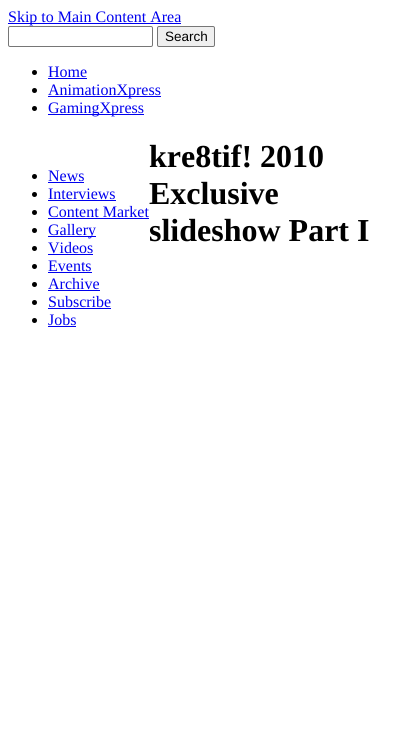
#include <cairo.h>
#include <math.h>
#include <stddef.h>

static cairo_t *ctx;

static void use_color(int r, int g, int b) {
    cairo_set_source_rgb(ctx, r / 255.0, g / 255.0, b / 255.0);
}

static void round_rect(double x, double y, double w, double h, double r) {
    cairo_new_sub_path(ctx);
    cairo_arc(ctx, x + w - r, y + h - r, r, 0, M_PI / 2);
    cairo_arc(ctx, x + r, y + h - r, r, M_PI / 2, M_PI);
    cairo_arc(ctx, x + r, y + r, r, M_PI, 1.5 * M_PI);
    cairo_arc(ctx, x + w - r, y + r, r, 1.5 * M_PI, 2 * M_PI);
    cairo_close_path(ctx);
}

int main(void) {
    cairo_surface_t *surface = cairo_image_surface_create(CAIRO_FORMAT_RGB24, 399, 732);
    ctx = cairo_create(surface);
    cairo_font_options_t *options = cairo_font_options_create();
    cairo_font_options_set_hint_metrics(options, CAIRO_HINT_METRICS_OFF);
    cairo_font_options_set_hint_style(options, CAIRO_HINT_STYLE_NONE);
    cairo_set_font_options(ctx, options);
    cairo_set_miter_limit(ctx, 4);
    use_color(255, 255, 255);
    cairo_paint(ctx);
    use_color(0, 0, 238);
    cairo_rectangle(ctx, 8, 23, 173, 1);
    cairo_fill(ctx);
    cairo_select_font_face(ctx, "Liberation Serif", CAIRO_FONT_SLANT_NORMAL, CAIRO_FONT_WEIGHT_NORMAL);
    cairo_set_font_size(ctx, 16);
    cairo_move_to(ctx, 8, 22);
    cairo_show_text(ctx, "Skip to Main Content Area");
    round_rect(8.5, 26.5, 144, 20, 1.5);
    use_color(118, 118, 118);
    cairo_set_line_width(ctx, 1);
    cairo_stroke(ctx);
    use_color(239, 239, 239);
    round_rect(157.5, 26.5, 57, 20, 1.5);
    cairo_fill_preserve(ctx);
    use_color(118, 118, 118);
    cairo_stroke(ctx);
    cairo_select_font_face(ctx, "Liberation Sans", CAIRO_FONT_SLANT_NORMAL, CAIRO_FONT_WEIGHT_NORMAL);
    cairo_set_font_size(ctx, 13.5);
    use_color(0, 0, 0);
    cairo_move_to(ctx, 165, 41);
    cairo_show_text(ctx, "Search");
    cairo_new_path(ctx);
    cairo_arc(ctx, 34.5, 72.5, 2.5, 0, 2 * M_PI);
    cairo_fill(ctx);
    cairo_select_font_face(ctx, "Liberation Serif", CAIRO_FONT_SLANT_NORMAL, CAIRO_FONT_WEIGHT_NORMAL);
    cairo_set_font_size(ctx, 16);
    use_color(0, 0, 238);
    cairo_move_to(ctx, 48, 77);
    cairo_show_text(ctx, "Home");
    cairo_rectangle(ctx, 48, 78, 39, 1);
    cairo_fill(ctx);
    use_color(0, 0, 0);
    cairo_arc(ctx, 34.5, 90.5, 2.5, 0, 2 * M_PI);
    cairo_fill(ctx);
    use_color(0, 0, 238);
    cairo_rectangle(ctx, 48, 96, 113, 1);
    cairo_fill(ctx);
    cairo_move_to(ctx, 48, 95);
    cairo_show_text(ctx, "AnimationXpress");
    use_color(0, 0, 0);
    cairo_new_path(ctx);
    cairo_arc(ctx, 34.5, 108.5, 2.5, 0, 2 * M_PI);
    cairo_fill(ctx);
    use_color(0, 0, 238);
    cairo_rectangle(ctx, 48, 114, 96, 1);
    cairo_fill(ctx);
    cairo_move_to(ctx, 48, 113);
    cairo_show_text(ctx, "GamingXpress");
    use_color(0, 0, 0);
    cairo_new_path(ctx);
    cairo_arc(ctx, 34.5, 176.5, 2.5, 0, 2 * M_PI);
    cairo_fill(ctx);
    use_color(0, 0, 238);
    cairo_move_to(ctx, 48, 181);
    cairo_show_text(ctx, "News");
    cairo_rectangle(ctx, 48, 182, 36, 1);
    cairo_fill(ctx);
    use_color(0, 0, 0);
    cairo_arc(ctx, 34.5, 194.5, 2.5, 0, 2 * M_PI);
    cairo_fill(ctx);
    use_color(0, 0, 238);
    cairo_move_to(ctx, 48, 199);
    cairo_show_text(ctx, "Interviews");
    cairo_rectangle(ctx, 48, 200, 68, 1);
    cairo_fill(ctx);
    use_color(0, 0, 0);
    cairo_arc(ctx, 34.5, 212.5, 2.5, 0, 2 * M_PI);
    cairo_fill(ctx);
    use_color(0, 0, 238);
    cairo_move_to(ctx, 48, 217);
    cairo_show_text(ctx, "Content Market");
    cairo_rectangle(ctx, 48, 218, 101, 1);
    cairo_fill(ctx);
    use_color(0, 0, 0);
    cairo_arc(ctx, 34.5, 230.5, 2.5, 0, 2 * M_PI);
    cairo_fill(ctx);
    use_color(0, 0, 238);
    cairo_rectangle(ctx, 48, 236, 48, 1);
    cairo_fill(ctx);
    cairo_move_to(ctx, 48, 235);
    cairo_show_text(ctx, "Gallery");
    use_color(0, 0, 0);
    cairo_new_path(ctx);
    cairo_arc(ctx, 34.5, 248.5, 2.5, 0, 2 * M_PI);
    cairo_fill(ctx);
    use_color(0, 0, 238);
    cairo_move_to(ctx, 48, 253);
    cairo_show_text(ctx, "Videos");
    cairo_rectangle(ctx, 48, 254, 45, 1);
    cairo_fill(ctx);
    use_color(0, 0, 0);
    cairo_arc(ctx, 34.5, 266.5, 2.5, 0, 2 * M_PI);
    cairo_fill(ctx);
    use_color(0, 0, 238);
    cairo_move_to(ctx, 48, 271);
    cairo_show_text(ctx, "Events");
    cairo_rectangle(ctx, 48, 272, 44, 1);
    cairo_fill(ctx);
    use_color(0, 0, 0);
    cairo_arc(ctx, 34.5, 284.5, 2.5, 0, 2 * M_PI);
    cairo_fill(ctx);
    use_color(0, 0, 238);
    cairo_move_to(ctx, 48, 289);
    cairo_show_text(ctx, "Archive");
    cairo_rectangle(ctx, 48, 290, 52, 1);
    cairo_fill(ctx);
    use_color(0, 0, 0);
    cairo_arc(ctx, 34.5, 302.5, 2.5, 0, 2 * M_PI);
    cairo_fill(ctx);
    use_color(0, 0, 238);
    cairo_move_to(ctx, 48, 307);
    cairo_show_text(ctx, "Subscribe");
    cairo_rectangle(ctx, 48, 308, 63, 1);
    cairo_fill(ctx);
    use_color(0, 0, 0);
    cairo_arc(ctx, 34.5, 320.5, 2.5, 0, 2 * M_PI);
    cairo_fill(ctx);
    use_color(0, 0, 238);
    cairo_move_to(ctx, 48, 325);
    cairo_show_text(ctx, "Jobs");
    cairo_rectangle(ctx, 48, 326, 28, 1);
    cairo_fill(ctx);
    cairo_select_font_face(ctx, "Liberation Serif", CAIRO_FONT_SLANT_NORMAL, CAIRO_FONT_WEIGHT_BOLD);
    cairo_set_font_size(ctx, 32);
    use_color(0, 0, 0);
    cairo_move_to(ctx, 149, 167);
    cairo_show_text(ctx, "kre8tif! 2010");
    cairo_move_to(ctx, 149, 204);
    cairo_show_text(ctx, "Exclusive");
    cairo_move_to(ctx, 149, 241);
    cairo_show_text(ctx, "slideshow Part I");
    cairo_surface_write_to_png(surface, "result.png");
    cairo_font_options_destroy(options);
    cairo_destroy(ctx);
    cairo_surface_destroy(surface);
    return 0;
}
